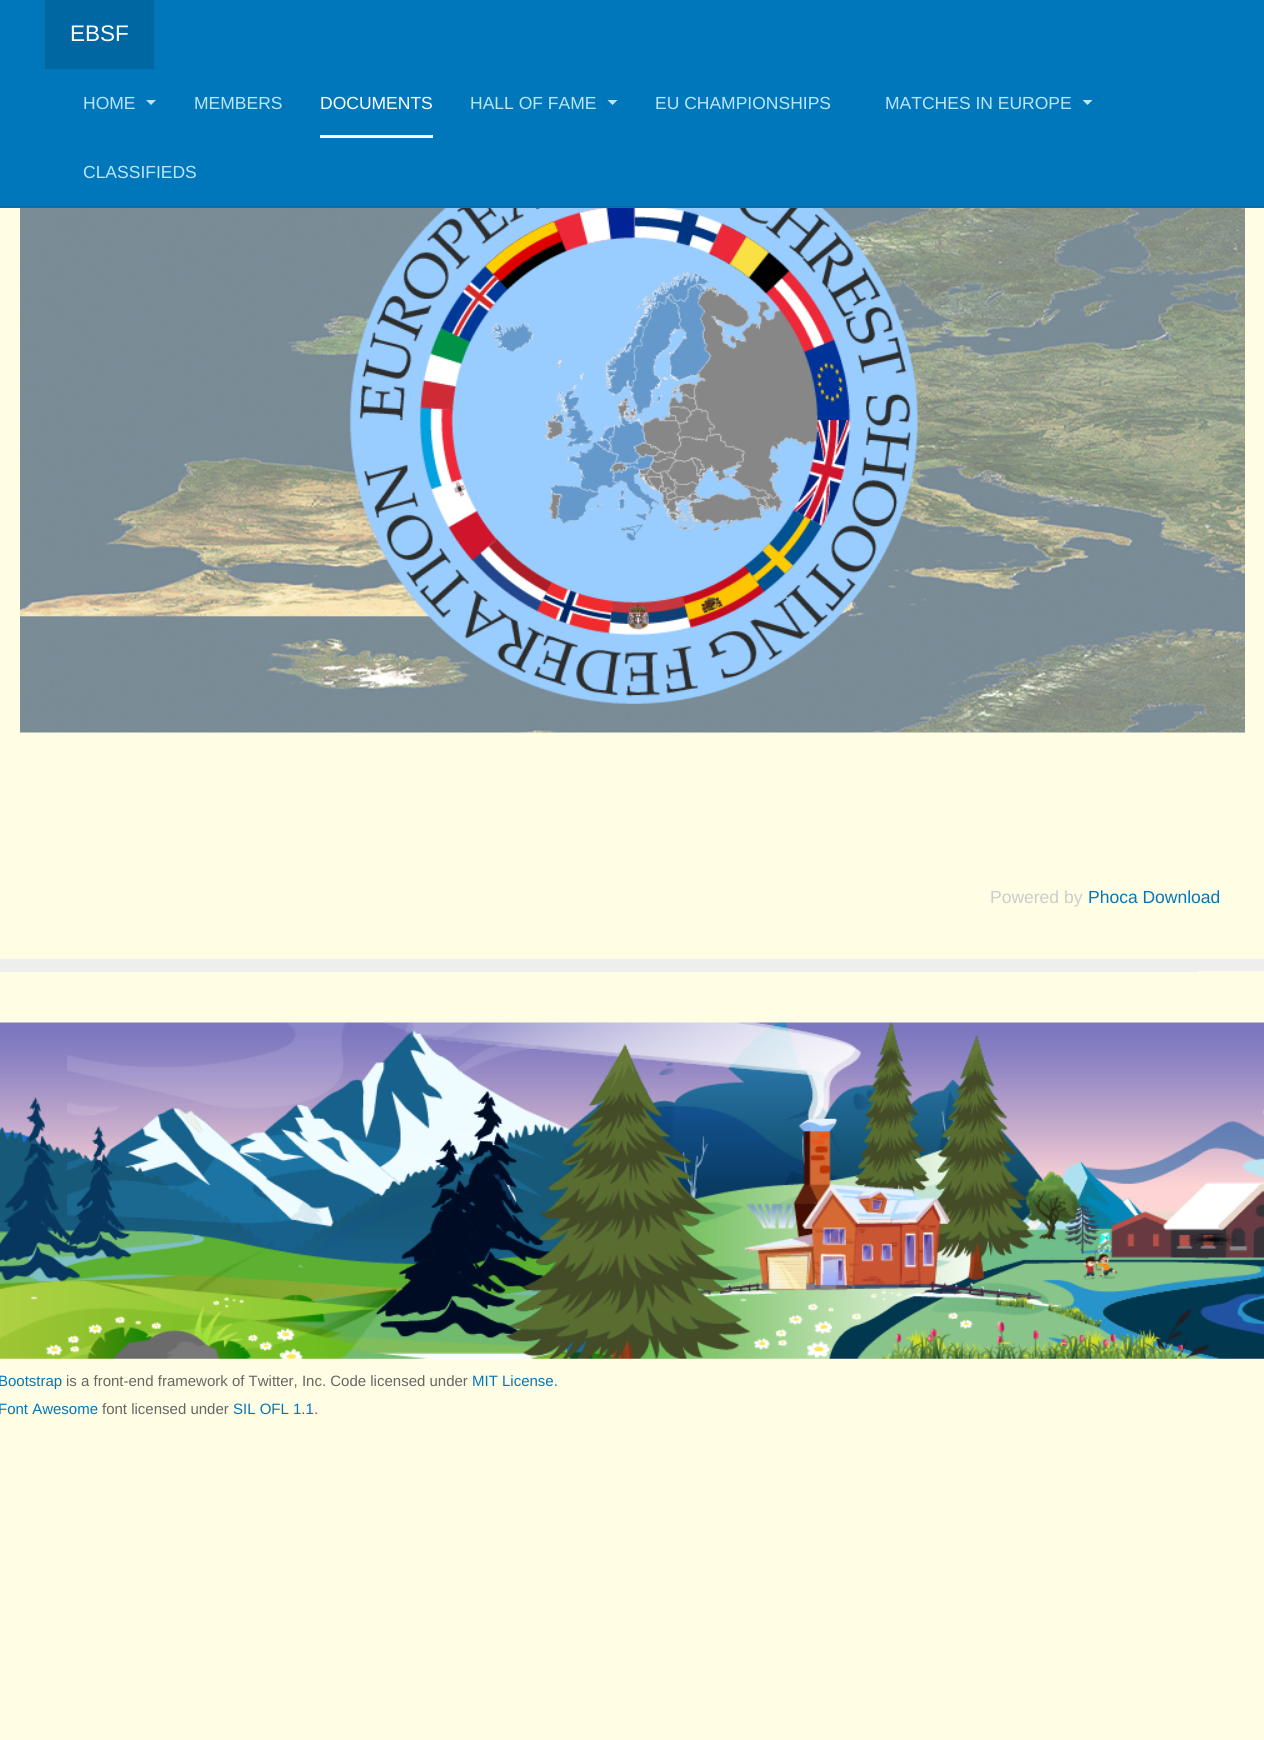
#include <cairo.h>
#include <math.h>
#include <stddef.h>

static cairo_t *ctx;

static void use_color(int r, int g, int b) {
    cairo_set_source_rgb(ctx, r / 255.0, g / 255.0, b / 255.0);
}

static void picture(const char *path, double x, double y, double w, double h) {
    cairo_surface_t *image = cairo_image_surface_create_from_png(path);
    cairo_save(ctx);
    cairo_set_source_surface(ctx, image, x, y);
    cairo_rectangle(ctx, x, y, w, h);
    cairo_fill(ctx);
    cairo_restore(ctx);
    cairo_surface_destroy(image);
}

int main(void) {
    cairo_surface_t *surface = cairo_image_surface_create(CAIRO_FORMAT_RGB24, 1264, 1740);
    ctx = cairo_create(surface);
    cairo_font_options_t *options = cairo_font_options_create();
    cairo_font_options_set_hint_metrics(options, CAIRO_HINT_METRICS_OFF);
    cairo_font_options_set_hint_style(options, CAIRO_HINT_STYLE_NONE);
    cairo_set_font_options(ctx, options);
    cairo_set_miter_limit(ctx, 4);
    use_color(255, 253, 227);
    cairo_paint(ctx);
    use_color(0, 119, 187);
    cairo_rectangle(ctx, 0, 0, 1264, 208);
    cairo_fill(ctx);
    use_color(0, 103, 162);
    cairo_rectangle(ctx, 0, 206, 1264, 1);
    cairo_fill(ctx);
    cairo_rectangle(ctx, 45, 0, 109, 69);
    cairo_fill(ctx);
    cairo_select_font_face(ctx, "Liberation Sans", CAIRO_FONT_SLANT_NORMAL, CAIRO_FONT_WEIGHT_NORMAL);
    cairo_set_font_size(ctx, 22.5);
    use_color(255, 255, 255);
    cairo_move_to(ctx, 70, 41);
    cairo_show_text(ctx, "EBSF");
    cairo_set_font_size(ctx, 17.5);
    use_color(187, 230, 255);
    cairo_move_to(ctx, 83, 109);
    cairo_show_text(ctx, "HOME");
    cairo_new_path(ctx);
    cairo_move_to(ctx, 146, 100);
    cairo_line_to(ctx, 156, 100);
    cairo_line_to(ctx, 151, 105);
    cairo_close_path(ctx);
    cairo_fill(ctx);
    cairo_move_to(ctx, 194, 109);
    cairo_show_text(ctx, "MEMBERS");
    use_color(255, 255, 255);
    cairo_rectangle(ctx, 320, 135, 113, 3);
    cairo_fill(ctx);
    cairo_move_to(ctx, 320, 109);
    cairo_show_text(ctx, "DOCUMENTS");
    use_color(187, 230, 255);
    cairo_move_to(ctx, 470, 109);
    cairo_show_text(ctx, "HALL OF FAME");
    cairo_new_path(ctx);
    cairo_move_to(ctx, 607.5, 100);
    cairo_line_to(ctx, 617.5, 100);
    cairo_line_to(ctx, 612.5, 105);
    cairo_close_path(ctx);
    cairo_fill(ctx);
    cairo_move_to(ctx, 655, 109);
    cairo_show_text(ctx, "EU CHAMPIONSHIPS");
    cairo_move_to(ctx, 885, 109);
    cairo_show_text(ctx, "MATCHES IN EUROPE");
    cairo_new_path(ctx);
    cairo_move_to(ctx, 1082.5, 100);
    cairo_line_to(ctx, 1092.5, 100);
    cairo_line_to(ctx, 1087.5, 105);
    cairo_close_path(ctx);
    cairo_fill(ctx);
    cairo_move_to(ctx, 83, 178);
    cairo_show_text(ctx, "CLASSIFIEDS");
    picture("img1.png", 20, 208, 1225, 525);
    picture("img2.png", 349, 208, 569, 496);
    use_color(204, 204, 204);
    cairo_move_to(ctx, 990, 903);
    cairo_show_text(ctx, "Powered by");
    use_color(0, 119, 187);
    cairo_move_to(ctx, 1088, 903);
    cairo_show_text(ctx, "Phoca Download");
    use_color(238, 238, 238);
    cairo_rectangle(ctx, 0, 959, 1264, 12);
    cairo_fill(ctx);
    cairo_rectangle(ctx, 0, 971, 1198, 1);
    cairo_fill(ctx);
    picture("img3.png", 0, 1022, 1264, 337);
    cairo_set_font_size(ctx, 15);
    use_color(0, 119, 187);
    cairo_move_to(ctx, -2, 1386);
    cairo_show_text(ctx, "Bootstrap");
    use_color(102, 102, 102);
    cairo_move_to(ctx, 66, 1386);
    cairo_show_text(ctx, "is a front-end framework of Twitter, Inc. Code licensed under");
    use_color(0, 119, 187);
    cairo_move_to(ctx, 472, 1386);
    cairo_show_text(ctx, "MIT License.");
    cairo_move_to(ctx, -2, 1414);
    cairo_show_text(ctx, "Font Awesome");
    use_color(102, 102, 102);
    cairo_move_to(ctx, 102, 1414);
    cairo_show_text(ctx, "font licensed under");
    use_color(0, 119, 187);
    cairo_move_to(ctx, 233, 1414);
    cairo_show_text(ctx, "SIL OFL 1.1");
    use_color(102, 102, 102);
    cairo_move_to(ctx, 314, 1414);
    cairo_show_text(ctx, ".");
    cairo_surface_write_to_png(surface, "result.png");
    cairo_font_options_destroy(options);
    cairo_destroy(ctx);
    cairo_surface_destroy(surface);
    return 0;
}
